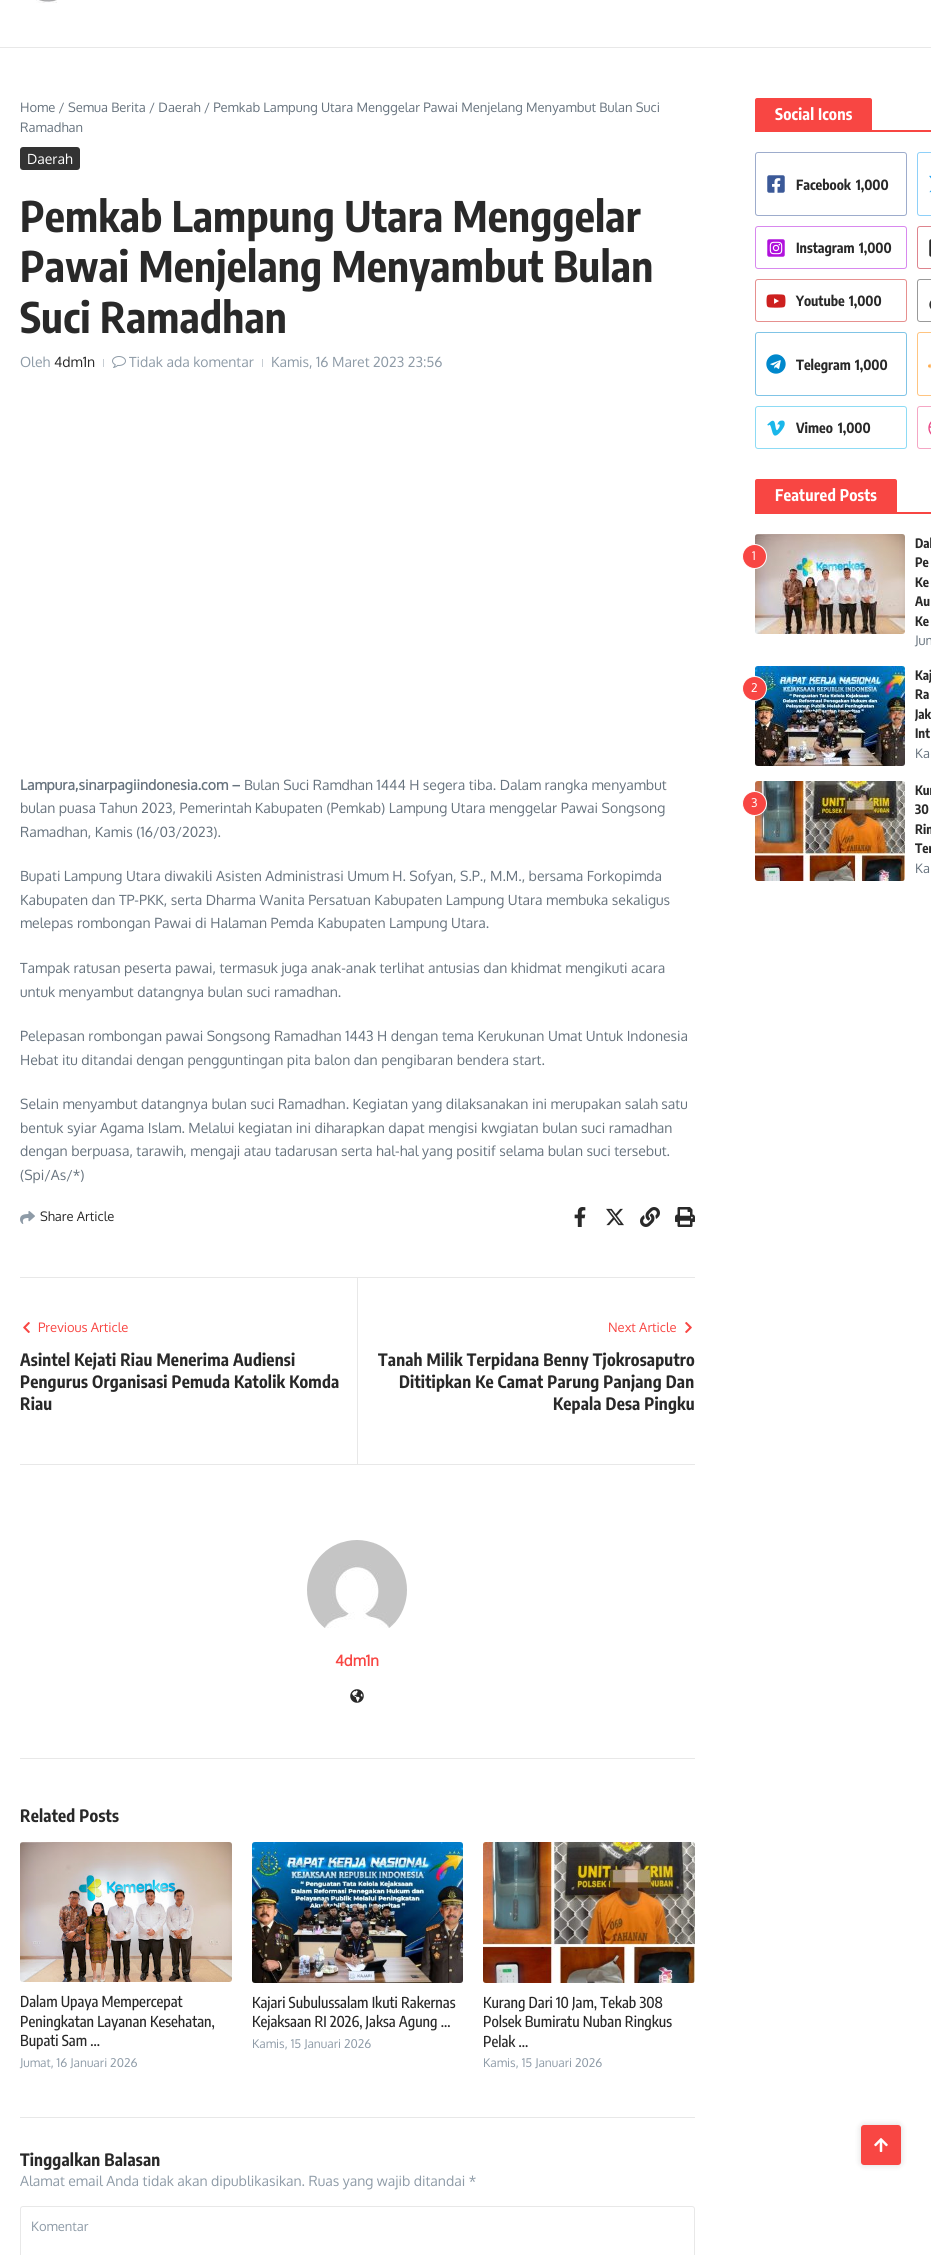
#include <cairo.h>
#include <math.h>
#include <stddef.h>

static cairo_t *ctx;

static void use_color(int r, int g, int b) {
    cairo_set_source_rgb(ctx, r / 255.0, g / 255.0, b / 255.0);
}

static void spaced_text(double x, double y, const char *s, double letter, double word) {
    cairo_move_to(ctx, x, y);
    while (*s) {
        char ch[5] = {0};
        int n = 0;
        do ch[n++] = *s++; while ((*s & 0xC0) == 0x80);
        cairo_show_text(ctx, ch);
        cairo_rel_move_to(ctx, letter + word * (*ch == ' '), 0);
    }
}

static void round_rect(double x, double y, double w, double h, double r) {
    cairo_new_sub_path(ctx);
    cairo_arc(ctx, x + w - r, y + h - r, r, 0, M_PI / 2);
    cairo_arc(ctx, x + r, y + h - r, r, M_PI / 2, M_PI);
    cairo_arc(ctx, x + r, y + r, r, M_PI, 1.5 * M_PI);
    cairo_arc(ctx, x + w - r, y + r, r, 1.5 * M_PI, 2 * M_PI);
    cairo_close_path(ctx);
}

static void shadow(double x, double y, double w, double h, double r, double blur, double alpha) {
    cairo_push_group_with_content(ctx, CAIRO_CONTENT_ALPHA);
    cairo_set_operator(ctx, CAIRO_OPERATOR_SOURCE);
    for (int i = 15; i >= -15 && fmin(w, h) + blur * i / 3 > 0; i -= 2) {
        double e = blur * i / 6;
        cairo_set_source_rgba(ctx, 0, 0, 0, alpha * erfc((i - 1) / 8.5) / 2);
        round_rect(x - e, y - e, w + 2 * e, h + 2 * e, fmax(0, fmin(r + e + blur * .6, fmin(w, h) / 2 + e)));
        cairo_fill(ctx);
    }
    cairo_pattern_t *soft = cairo_pop_group(ctx);
    cairo_mask(ctx, soft);
    cairo_pattern_destroy(soft);
}

static void picture(const char *path, double x, double y, double w, double h) {
    cairo_surface_t *image = cairo_image_surface_create_from_png(path);
    cairo_save(ctx);
    cairo_set_source_surface(ctx, image, x, y);
    cairo_rectangle(ctx, x, y, w, h);
    cairo_fill(ctx);
    cairo_restore(ctx);
    cairo_surface_destroy(image);
}

int main(void) {
    cairo_surface_t *surface = cairo_image_surface_create(CAIRO_FORMAT_RGB24, 931, 2255);
    ctx = cairo_create(surface);
    cairo_font_options_t *options = cairo_font_options_create();
    cairo_font_options_set_hint_metrics(options, CAIRO_HINT_METRICS_OFF);
    cairo_font_options_set_hint_style(options, CAIRO_HINT_STYLE_NONE);
    cairo_set_font_options(ctx, options);
    cairo_set_miter_limit(ctx, 4);
    use_color(255, 255, 255);
    cairo_paint(ctx);
    use_color(232, 232, 232);
    cairo_rectangle(ctx, 0, 47, 931, 1);
    cairo_fill(ctx);
    picture("img1.png", 36, 0, 21, 3);
    cairo_select_font_face(ctx, "Oxygen", CAIRO_FONT_SLANT_NORMAL, CAIRO_FONT_WEIGHT_NORMAL);
    cairo_set_font_size(ctx, 13);
    use_color(103, 115, 126);
    cairo_move_to(ctx, 20, 112);
    cairo_show_text(ctx, "Home / Semua Berita / Daerah / Pemkab Lampung Utara Menggelar Pawai Menjelang Menyambut Bulan Suci");
    cairo_move_to(ctx, 20, 132);
    cairo_show_text(ctx, "Ramadhan");
    use_color(51, 51, 51);
    round_rect(20, 147, 60, 23, 3);
    cairo_fill(ctx);
    cairo_set_font_size(ctx, 14);
    use_color(255, 255, 255);
    cairo_move_to(ctx, 27, 164);
    cairo_show_text(ctx, "Daerah");
    cairo_select_font_face(ctx, "Encode Sans Condensed", CAIRO_FONT_SLANT_NORMAL, CAIRO_FONT_WEIGHT_BOLD);
    cairo_set_font_size(ctx, 42);
    use_color(41, 41, 41);
    spaced_text(20, 232, "Pemkab Lampung Utara Menggelar", 0.2, 0);
    spaced_text(20, 282, "Pawai Menjelang Menyambut Bulan", 0.2, 0);
    spaced_text(20, 333, "Suci Ramadhan", 0.2, 0);
    cairo_select_font_face(ctx, "Oxygen", CAIRO_FONT_SLANT_NORMAL, CAIRO_FONT_WEIGHT_NORMAL);
    cairo_set_font_size(ctx, 14);
    use_color(142, 155, 167);
    cairo_move_to(ctx, 20, 367);
    cairo_show_text(ctx, "Oleh");
    use_color(41, 41, 41);
    cairo_move_to(ctx, 54, 367);
    cairo_show_text(ctx, "4dm1n");
    use_color(199, 205, 211);
    cairo_rectangle(ctx, 103, 359, 1, 8);
    cairo_fill(ctx);
    picture("img2.png", 112, 356, 14, 12);
    use_color(142, 155, 167);
    cairo_move_to(ctx, 129, 367);
    cairo_show_text(ctx, "Tidak ada komentar");
    use_color(199, 205, 211);
    cairo_rectangle(ctx, 262, 359, 1, 8);
    cairo_fill(ctx);
    use_color(142, 155, 167);
    cairo_move_to(ctx, 271, 367);
    cairo_show_text(ctx, "Kamis, 16 Maret 2023 23:56");
    cairo_select_font_face(ctx, "Oxygen", CAIRO_FONT_SLANT_NORMAL, CAIRO_FONT_WEIGHT_BOLD);
    use_color(103, 115, 126);
    cairo_move_to(ctx, 20, 790);
    cairo_show_text(ctx, "Lampura,sinarpagiindonesia.com –");
    cairo_select_font_face(ctx, "Oxygen", CAIRO_FONT_SLANT_NORMAL, CAIRO_FONT_WEIGHT_NORMAL);
    cairo_move_to(ctx, 244, 790);
    cairo_show_text(ctx, "Bulan Suci Ramdhan 1444 H segera tiba. Dalam rangka menyambut");
    cairo_move_to(ctx, 20, 813);
    cairo_show_text(ctx, "bulan puasa Tahun 2023, Pemerintah Kabupaten (Pemkab) Lampung Utara menggelar Pawai Songsong");
    cairo_move_to(ctx, 20, 837);
    cairo_show_text(ctx, "Ramadhan, Kamis (16/03/2023).");
    cairo_move_to(ctx, 20, 881);
    cairo_show_text(ctx, "Bupati Lampung Utara diwakili Asisten Administrasi Umum H. Sofyan, S.P., M.M., bersama Forkopimda");
    cairo_move_to(ctx, 20, 905);
    cairo_show_text(ctx, "Kabupaten dan TP-PKK, serta Dharma Wanita Persatuan Kabupaten Lampung Utara membuka sekaligus");
    cairo_move_to(ctx, 20, 928);
    cairo_show_text(ctx, "melepas rombongan Pawai di Halaman Pemda Kabupaten Lampung Utara.");
    cairo_move_to(ctx, 20, 973);
    cairo_show_text(ctx, "Tampak ratusan peserta pawai, termasuk juga anak-anak terlihat antusias dan khidmat mengikuti acara");
    cairo_move_to(ctx, 20, 997);
    cairo_show_text(ctx, "untuk menyambut datangnya bulan suci ramadhan.");
    cairo_move_to(ctx, 20, 1041);
    cairo_show_text(ctx, "Pelepasan rombongan pawai Songsong Ramadhan 1443 H dengan tema Kerukunan Umat Untuk Indonesia");
    cairo_move_to(ctx, 20, 1065);
    cairo_show_text(ctx, "Hebat itu ditandai dengan pengguntingan pita balon dan pengibaran bendera start.");
    cairo_move_to(ctx, 20, 1109);
    cairo_show_text(ctx, "Selain menyambut datangnya bulan suci Ramadhan. Kegiatan yang dilaksanakan ini merupakan salah satu");
    cairo_move_to(ctx, 20, 1133);
    cairo_show_text(ctx, "bentuk syiar Agama Islam. Melalui kegiatan ini diharapkan dapat mengisi kwgiatan bulan suci ramadhan");
    cairo_move_to(ctx, 20, 1156);
    cairo_show_text(ctx, "dengan berpuasa, tarawih, mengaji atau tadarusan serta hal-hal yang positif selama bulan suci tersebut.");
    cairo_move_to(ctx, 20, 1180);
    cairo_show_text(ctx, "(Spi/As/*)");
    picture("img3.png", 20, 1211, 15, 13);
    cairo_set_font_size(ctx, 13);
    use_color(41, 41, 41);
    cairo_move_to(ctx, 40, 1221);
    cairo_show_text(ctx, "Share Article");
    picture("img4.png", 574, 1207, 12, 20);
    picture("img5.png", 606, 1208, 18, 18);
    picture("img6.png", 640, 1207, 20, 20);
    picture("img7.png", 675, 1207, 20, 20);
    use_color(232, 232, 232);
    cairo_rectangle(ctx, 20, 1277, 675, 1);
    cairo_fill(ctx);
    cairo_rectangle(ctx, 20, 1464, 675, 1);
    cairo_fill(ctx);
    picture("img8.png", 23, 1322, 7, 11);
    use_color(248, 70, 67);
    cairo_move_to(ctx, 38, 1332);
    cairo_show_text(ctx, "Previous Article");
    cairo_select_font_face(ctx, "Encode Sans Condensed", CAIRO_FONT_SLANT_NORMAL, CAIRO_FONT_WEIGHT_BOLD);
    cairo_set_font_size(ctx, 17);
    use_color(41, 41, 41);
    spaced_text(20, 1366, "Asintel Kejati Riau Menerima Audiensi", 0.2, 0);
    spaced_text(20, 1388, "Pengurus Organisasi Pemuda Katolik Komda", 0.2, 0);
    spaced_text(20, 1410, "Riau", 0.2, 0);
    use_color(232, 232, 232);
    cairo_rectangle(ctx, 357, 1278, 1, 186);
    cairo_fill(ctx);
    cairo_select_font_face(ctx, "Oxygen", CAIRO_FONT_SLANT_NORMAL, CAIRO_FONT_WEIGHT_NORMAL);
    cairo_set_font_size(ctx, 13);
    use_color(248, 70, 67);
    cairo_move_to(ctx, 608, 1332);
    cairo_show_text(ctx, "Next Article");
    picture("img9.png", 685, 1322, 7, 11);
    cairo_select_font_face(ctx, "Encode Sans Condensed", CAIRO_FONT_SLANT_NORMAL, CAIRO_FONT_WEIGHT_BOLD);
    cairo_set_font_size(ctx, 17);
    use_color(41, 41, 41);
    spaced_text(378, 1366, "Tanah Milik Terpidana Benny Tjokrosaputro", 0.2, 0);
    spaced_text(399, 1388, "Dititipkan Ke Camat Parung Panjang Dan", 0.2, 0);
    spaced_text(553, 1410, "Kepala Desa Pingku", 0.2, 0);
    use_color(232, 232, 232);
    cairo_rectangle(ctx, 20, 1758, 675, 1);
    cairo_fill(ctx);
    picture("img10.png", 307, 1540, 100, 88);
    cairo_select_font_face(ctx, "Oxygen", CAIRO_FONT_SLANT_NORMAL, CAIRO_FONT_WEIGHT_BOLD);
    cairo_set_font_size(ctx, 15);
    use_color(248, 70, 67);
    cairo_move_to(ctx, 335, 1666);
    cairo_show_text(ctx, "4dm1n");
    picture("img11.png", 350, 1689, 14, 14);
    use_color(232, 232, 232);
    cairo_rectangle(ctx, 20, 2117, 675, 1);
    cairo_fill(ctx);
    cairo_select_font_face(ctx, "Encode Sans Condensed", CAIRO_FONT_SLANT_NORMAL, CAIRO_FONT_WEIGHT_BOLD);
    cairo_set_font_size(ctx, 17);
    use_color(41, 41, 41);
    spaced_text(20, 1822, "Related Posts", 0.2, 0);
    picture("img12.png", 20, 1842, 212, 140);
    cairo_select_font_face(ctx, "Encode Sans Condensed Medium", CAIRO_FONT_SLANT_NORMAL, CAIRO_FONT_WEIGHT_NORMAL);
    cairo_set_font_size(ctx, 15);
    cairo_move_to(ctx, 20, 2007);
    cairo_show_text(ctx, "Dalam Upaya Mempercepat");
    cairo_move_to(ctx, 20, 2027);
    cairo_show_text(ctx, "Peningkatan Layanan Kesehatan,");
    cairo_move_to(ctx, 20, 2046);
    cairo_show_text(ctx, "Bupati Sam ...");
    cairo_select_font_face(ctx, "Oxygen", CAIRO_FONT_SLANT_NORMAL, CAIRO_FONT_WEIGHT_NORMAL);
    cairo_set_font_size(ctx, 12);
    use_color(142, 155, 167);
    cairo_move_to(ctx, 20, 2067);
    cairo_show_text(ctx, "Jumat, 16 Januari 2026");
    picture("img13.png", 252, 1842, 211, 141);
    cairo_select_font_face(ctx, "Encode Sans Condensed Medium", CAIRO_FONT_SLANT_NORMAL, CAIRO_FONT_WEIGHT_NORMAL);
    cairo_set_font_size(ctx, 15);
    use_color(41, 41, 41);
    cairo_move_to(ctx, 252, 2008);
    cairo_show_text(ctx, "Kajari Subulussalam Ikuti Rakernas");
    cairo_move_to(ctx, 252, 2027);
    cairo_show_text(ctx, "Kejaksaan RI 2026, Jaksa Agung ...");
    cairo_select_font_face(ctx, "Oxygen", CAIRO_FONT_SLANT_NORMAL, CAIRO_FONT_WEIGHT_NORMAL);
    cairo_set_font_size(ctx, 12);
    use_color(142, 155, 167);
    cairo_move_to(ctx, 252, 2048);
    cairo_show_text(ctx, "Kamis, 15 Januari 2026");
    picture("img14.png", 483, 1842, 212, 141);
    cairo_select_font_face(ctx, "Encode Sans Condensed Medium", CAIRO_FONT_SLANT_NORMAL, CAIRO_FONT_WEIGHT_NORMAL);
    cairo_set_font_size(ctx, 15);
    use_color(41, 41, 41);
    cairo_move_to(ctx, 483, 2008);
    cairo_show_text(ctx, "Kurang Dari 10 Jam, Tekab 308");
    cairo_move_to(ctx, 483, 2027);
    cairo_show_text(ctx, "Polsek Bumiratu Nuban Ringkus");
    cairo_move_to(ctx, 483, 2047);
    cairo_show_text(ctx, "Pelak ...");
    cairo_select_font_face(ctx, "Oxygen", CAIRO_FONT_SLANT_NORMAL, CAIRO_FONT_WEIGHT_NORMAL);
    cairo_set_font_size(ctx, 12);
    use_color(142, 155, 167);
    cairo_move_to(ctx, 483, 2067);
    cairo_show_text(ctx, "Kamis, 15 Januari 2026");
    cairo_select_font_face(ctx, "Encode Sans Condensed", CAIRO_FONT_SLANT_NORMAL, CAIRO_FONT_WEIGHT_BOLD);
    cairo_set_font_size(ctx, 17);
    use_color(41, 41, 41);
    spaced_text(20, 2166, "Tinggalkan Balasan", 0.2, 0);
    cairo_select_font_face(ctx, "Oxygen", CAIRO_FONT_SLANT_NORMAL, CAIRO_FONT_WEIGHT_NORMAL);
    cairo_set_font_size(ctx, 14);
    use_color(142, 155, 167);
    cairo_move_to(ctx, 20, 2186);
    cairo_show_text(ctx, "Alamat email Anda tidak akan dipublikasikan. Ruas yang wajib ditandai *");
    round_rect(20.5, 2206.5, 674, 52, 2.5);
    use_color(232, 232, 232);
    cairo_set_line_width(ctx, 1);
    cairo_stroke(ctx);
    cairo_set_font_size(ctx, 13);
    use_color(142, 155, 167);
    cairo_move_to(ctx, 31, 2231);
    cairo_show_text(ctx, "Komentar");
    use_color(248, 70, 67);
    cairo_rectangle(ctx, 755, 130, 176, 2);
    cairo_fill(ctx);
    cairo_new_path(ctx);
    cairo_move_to(ctx, 757, 98);
    cairo_line_to(ctx, 870, 98);
    cairo_curve_to(ctx, 871, 98, 872, 99, 872, 100);
    cairo_line_to(ctx, 872, 130);
    cairo_line_to(ctx, 755, 130);
    cairo_line_to(ctx, 755, 100);
    cairo_curve_to(ctx, 755, 99, 756, 98, 757, 98);
    cairo_close_path(ctx);
    cairo_fill(ctx);
    cairo_select_font_face(ctx, "Encode Sans Condensed", CAIRO_FONT_SLANT_NORMAL, CAIRO_FONT_WEIGHT_BOLD);
    cairo_set_font_size(ctx, 16);
    use_color(255, 255, 255);
    spaced_text(775, 120, "Social Icons", 0.2, 0);
    round_rect(755.5, 152.5, 151, 63, 2.5);
    use_color(157, 172, 204);
    cairo_stroke(ctx);
    picture("img15.png", 767, 175, 18, 18);
    cairo_set_font_size(ctx, 14);
    use_color(41, 41, 41);
    cairo_move_to(ctx, 796, 190);
    cairo_show_text(ctx, "Facebook");
    cairo_move_to(ctx, 856, 190);
    cairo_show_text(ctx, "1,000");
    round_rect(917.5, 152.5, 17, 63, 2.5);
    use_color(142, 208, 249);
    cairo_stroke(ctx);
    picture("img16.png", 929, 175, 2, 18);
    round_rect(755.5, 226.5, 151, 42, 2.5);
    use_color(216, 136, 238);
    cairo_stroke(ctx);
    picture("img17.png", 767, 239, 18, 18);
    use_color(41, 41, 41);
    cairo_move_to(ctx, 796, 253);
    cairo_show_text(ctx, "Instagram");
    cairo_move_to(ctx, 859, 253);
    cairo_show_text(ctx, "1,000");
    round_rect(917.5, 226.5, 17, 42, 2.5);
    use_color(222, 132, 142);
    cairo_stroke(ctx);
    picture("img18.png", 929, 239, 2, 18);
    round_rect(755.5, 279.5, 151, 42, 2.5);
    use_color(230, 144, 143);
    cairo_stroke(ctx);
    picture("img19.png", 766, 294, 20, 14);
    use_color(41, 41, 41);
    cairo_move_to(ctx, 796, 306);
    cairo_show_text(ctx, "Youtube");
    cairo_move_to(ctx, 849, 306);
    cairo_show_text(ctx, "1,000");
    round_rect(917.5, 279.5, 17, 42, 2.5);
    use_color(153, 153, 153);
    cairo_stroke(ctx);
    picture("img20.png", 929, 300, 2, 9);
    round_rect(755.5, 332.5, 151, 63, 2.5);
    use_color(128, 196, 230);
    cairo_stroke(ctx);
    picture("img21.png", 766, 354, 20, 20);
    use_color(41, 41, 41);
    cairo_move_to(ctx, 796, 370);
    cairo_show_text(ctx, "Telegram");
    cairo_move_to(ctx, 855, 370);
    cairo_show_text(ctx, "1,000");
    round_rect(917.5, 332.5, 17, 63, 2.5);
    use_color(255, 196, 128);
    cairo_stroke(ctx);
    picture("img22.png", 928, 363, 3, 6);
    round_rect(755.5, 406.5, 151, 42, 2.5);
    use_color(141, 219, 245);
    cairo_stroke(ctx);
    picture("img23.png", 767, 420, 18, 16);
    use_color(41, 41, 41);
    cairo_move_to(ctx, 796, 433);
    cairo_show_text(ctx, "Vimeo");
    cairo_move_to(ctx, 838, 433);
    cairo_show_text(ctx, "1,000");
    round_rect(917.5, 406.5, 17, 42, 2.5);
    use_color(245, 166, 196);
    cairo_stroke(ctx);
    picture("img24.png", 928, 421, 3, 14);
    use_color(248, 70, 67);
    cairo_rectangle(ctx, 755, 512, 176, 2);
    cairo_fill(ctx);
    cairo_new_path(ctx);
    cairo_move_to(ctx, 757, 479);
    cairo_line_to(ctx, 895, 479);
    cairo_curve_to(ctx, 896, 479, 897, 480, 897, 481);
    cairo_line_to(ctx, 897, 512);
    cairo_line_to(ctx, 755, 512);
    cairo_line_to(ctx, 755, 481);
    cairo_curve_to(ctx, 755, 480, 756, 479, 757, 479);
    cairo_close_path(ctx);
    cairo_fill(ctx);
    cairo_set_font_size(ctx, 16);
    use_color(255, 255, 255);
    spaced_text(775, 501, "Featured Posts", 0.2, 0);
    picture("img25.png", 755, 534, 150, 100);
    use_color(248, 70, 67);
    cairo_arc(ctx, 754.5, 556.5, 12, 0, 2 * M_PI);
    cairo_fill_preserve(ctx);
    use_color(255, 255, 255);
    cairo_stroke(ctx);
    cairo_select_font_face(ctx, "Oxygen", CAIRO_FONT_SLANT_NORMAL, CAIRO_FONT_WEIGHT_NORMAL);
    cairo_set_font_size(ctx, 12);
    cairo_move_to(ctx, 752, 560);
    cairo_show_text(ctx, "1");
    cairo_select_font_face(ctx, "Encode Sans Condensed", CAIRO_FONT_SLANT_NORMAL, CAIRO_FONT_WEIGHT_BOLD);
    cairo_set_font_size(ctx, 13);
    use_color(41, 41, 41);
    cairo_move_to(ctx, 915, 548);
    cairo_show_text(ctx, "Dal");
    cairo_move_to(ctx, 915, 567);
    cairo_show_text(ctx, "Pe");
    cairo_move_to(ctx, 915, 587);
    cairo_show_text(ctx, "Ke");
    cairo_move_to(ctx, 915, 606);
    cairo_show_text(ctx, "Au");
    cairo_move_to(ctx, 915, 626);
    cairo_show_text(ctx, "Ke");
    cairo_select_font_face(ctx, "Oxygen", CAIRO_FONT_SLANT_NORMAL, CAIRO_FONT_WEIGHT_NORMAL);
    use_color(103, 115, 126);
    cairo_move_to(ctx, 915, 645);
    cairo_show_text(ctx, "Jum");
    picture("img26.png", 755, 666, 150, 100);
    use_color(248, 70, 67);
    cairo_arc(ctx, 754.5, 688.5, 12, 0, 2 * M_PI);
    cairo_fill_preserve(ctx);
    use_color(255, 255, 255);
    cairo_stroke(ctx);
    cairo_set_font_size(ctx, 12);
    cairo_move_to(ctx, 751, 692);
    cairo_show_text(ctx, "2");
    cairo_select_font_face(ctx, "Encode Sans Condensed", CAIRO_FONT_SLANT_NORMAL, CAIRO_FONT_WEIGHT_BOLD);
    cairo_set_font_size(ctx, 13);
    use_color(41, 41, 41);
    cairo_move_to(ctx, 915, 680);
    cairo_show_text(ctx, "Kaj");
    cairo_move_to(ctx, 915, 699);
    cairo_show_text(ctx, "Ra");
    cairo_move_to(ctx, 915, 719);
    cairo_show_text(ctx, "Jak");
    cairo_move_to(ctx, 915, 738);
    cairo_show_text(ctx, "Int");
    cairo_select_font_face(ctx, "Oxygen", CAIRO_FONT_SLANT_NORMAL, CAIRO_FONT_WEIGHT_NORMAL);
    use_color(103, 115, 126);
    cairo_move_to(ctx, 915, 758);
    cairo_show_text(ctx, "Ka");
    picture("img27.png", 755, 781, 150, 100);
    use_color(248, 70, 67);
    cairo_arc(ctx, 754.5, 803.5, 12, 0, 2 * M_PI);
    cairo_fill_preserve(ctx);
    use_color(255, 255, 255);
    cairo_stroke(ctx);
    cairo_set_font_size(ctx, 12);
    cairo_move_to(ctx, 751, 807);
    cairo_show_text(ctx, "3");
    cairo_select_font_face(ctx, "Encode Sans Condensed", CAIRO_FONT_SLANT_NORMAL, CAIRO_FONT_WEIGHT_BOLD);
    cairo_set_font_size(ctx, 13);
    use_color(41, 41, 41);
    cairo_move_to(ctx, 915, 795);
    cairo_show_text(ctx, "Kur");
    cairo_move_to(ctx, 915, 814);
    cairo_show_text(ctx, "30");
    cairo_move_to(ctx, 915, 834);
    cairo_show_text(ctx, "Rin");
    cairo_move_to(ctx, 915, 853);
    cairo_show_text(ctx, "Ter");
    cairo_select_font_face(ctx, "Oxygen", CAIRO_FONT_SLANT_NORMAL, CAIRO_FONT_WEIGHT_NORMAL);
    use_color(103, 115, 126);
    cairo_move_to(ctx, 915, 873);
    cairo_show_text(ctx, "Ka");
    use_color(0, 0, 0);
    shadow(861, 2125, 40, 40, 3, 3.5, 0.15);
    use_color(248, 70, 67);
    round_rect(861, 2125, 40, 40, 3);
    cairo_fill(ctx);
    picture("img28.png", 874, 2138, 14, 14);
    cairo_surface_write_to_png(surface, "result.png");
    cairo_font_options_destroy(options);
    cairo_destroy(ctx);
    cairo_surface_destroy(surface);
    return 0;
}
